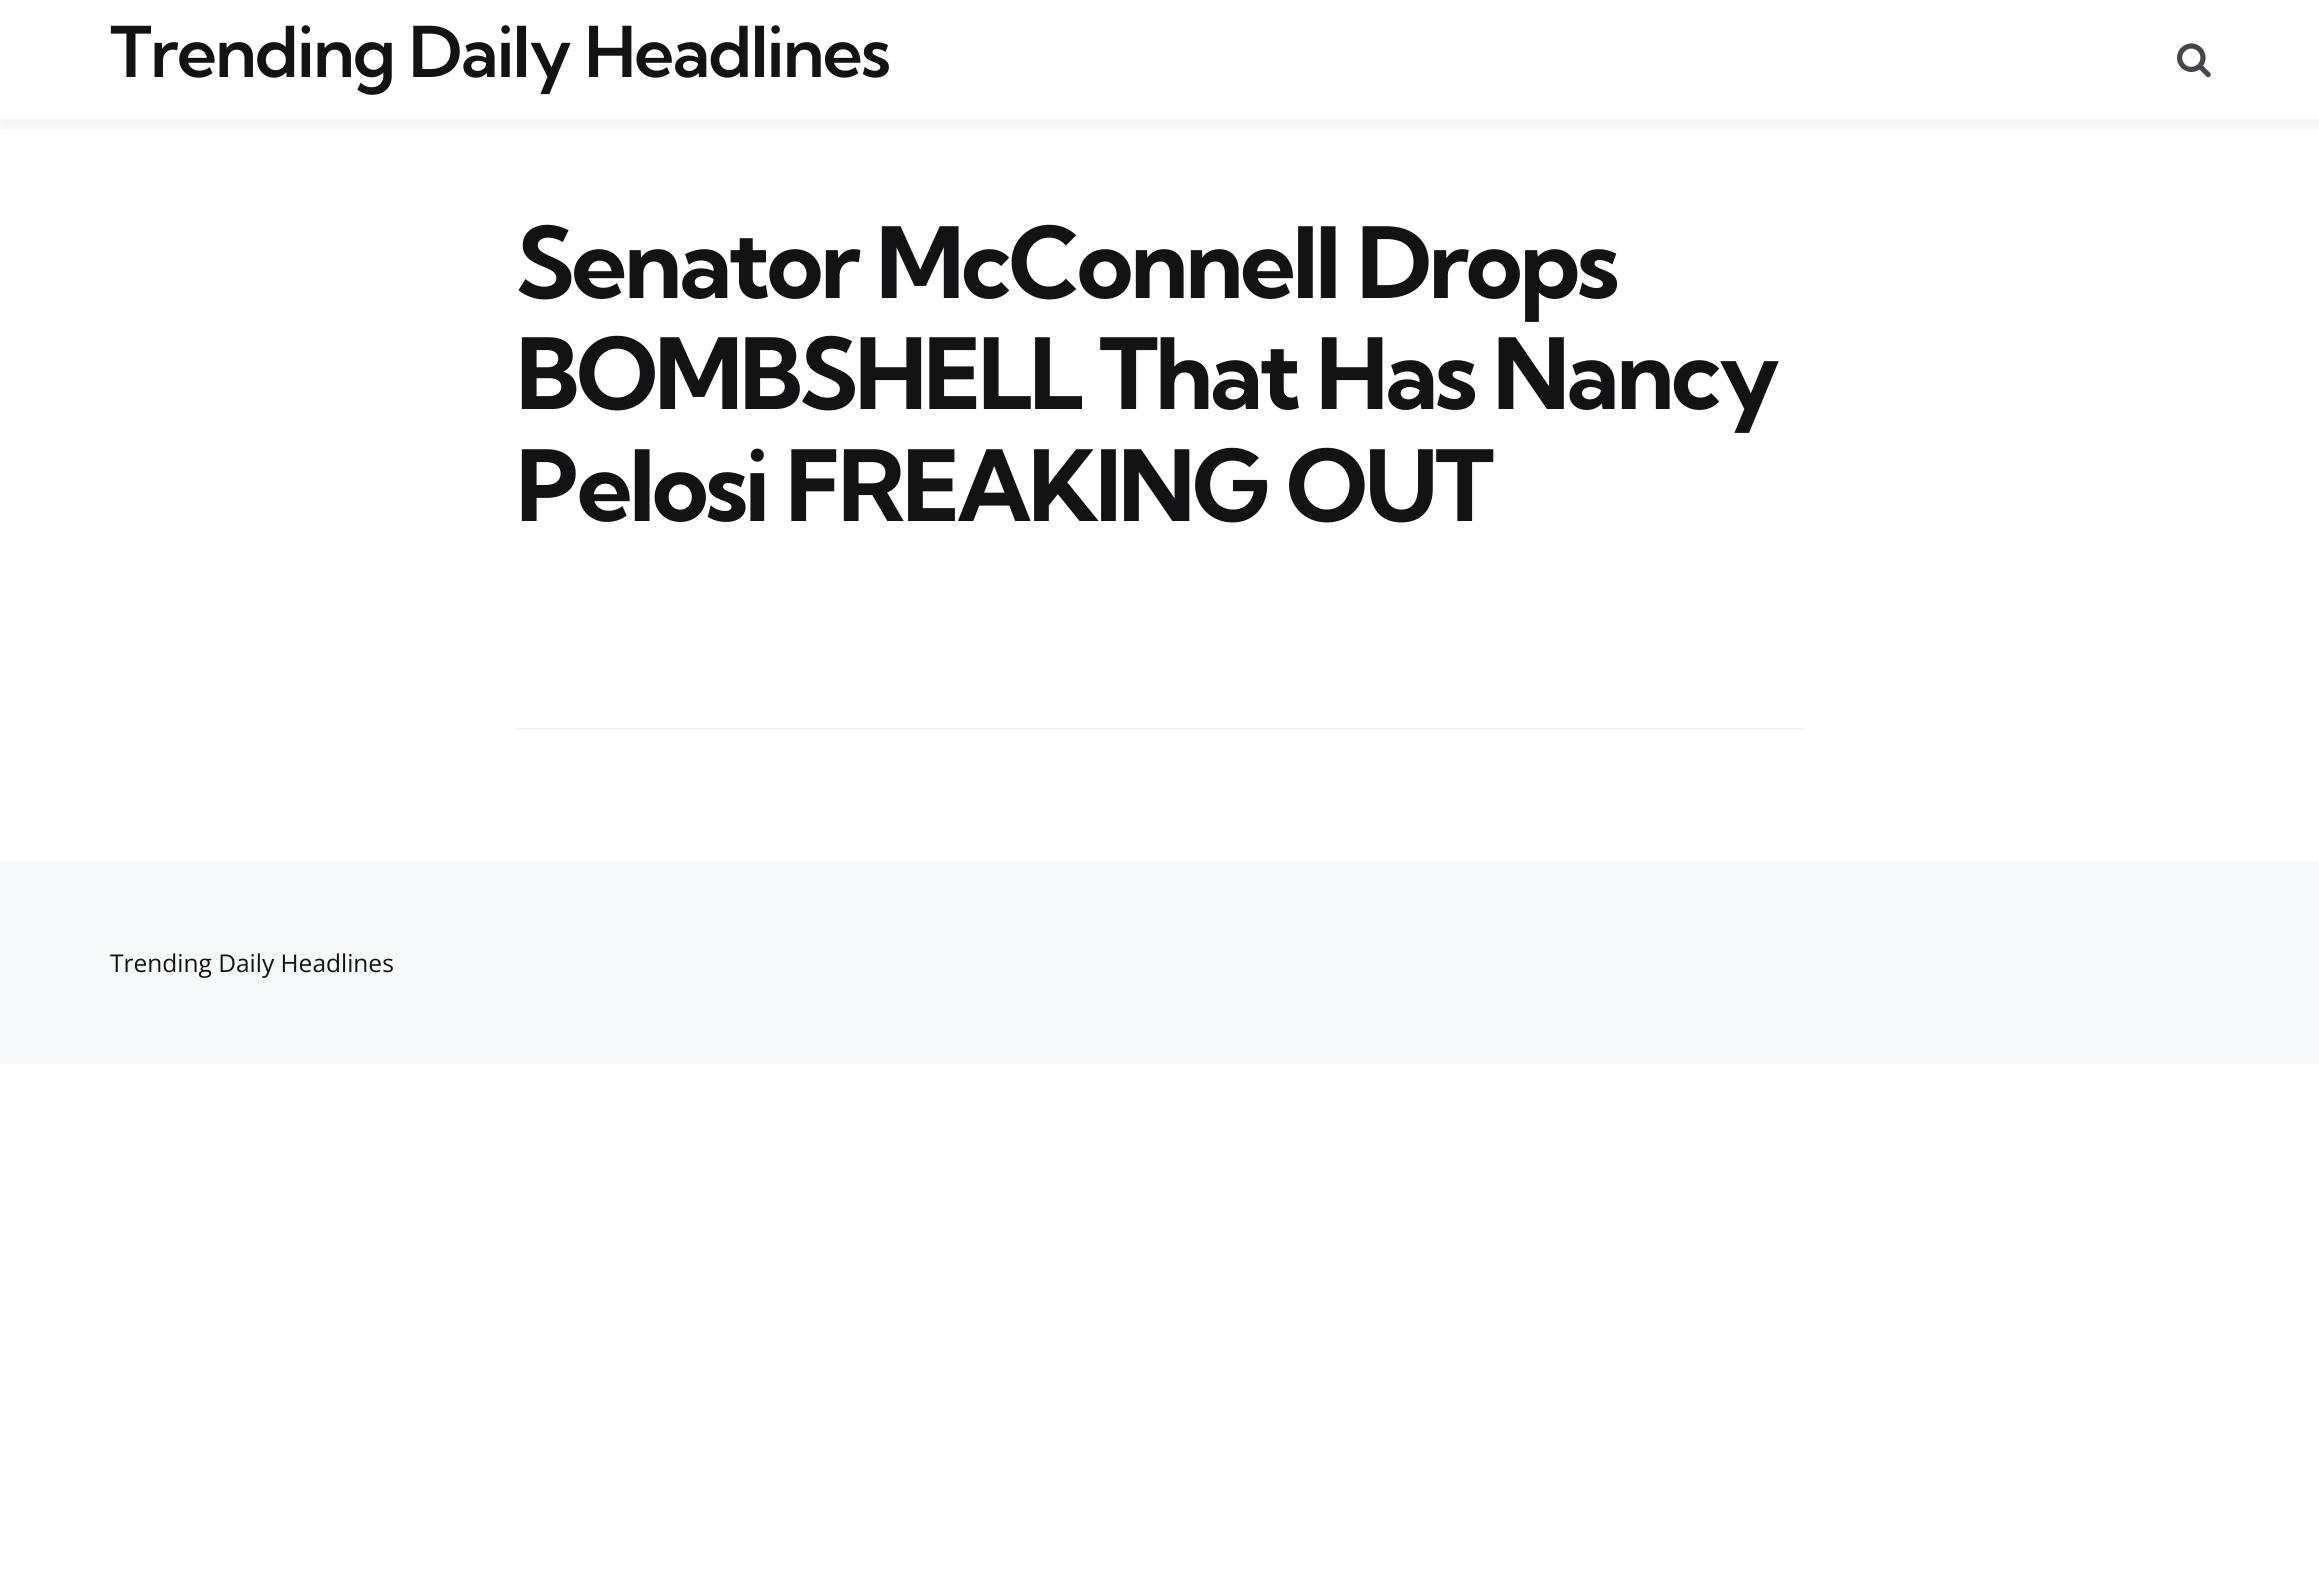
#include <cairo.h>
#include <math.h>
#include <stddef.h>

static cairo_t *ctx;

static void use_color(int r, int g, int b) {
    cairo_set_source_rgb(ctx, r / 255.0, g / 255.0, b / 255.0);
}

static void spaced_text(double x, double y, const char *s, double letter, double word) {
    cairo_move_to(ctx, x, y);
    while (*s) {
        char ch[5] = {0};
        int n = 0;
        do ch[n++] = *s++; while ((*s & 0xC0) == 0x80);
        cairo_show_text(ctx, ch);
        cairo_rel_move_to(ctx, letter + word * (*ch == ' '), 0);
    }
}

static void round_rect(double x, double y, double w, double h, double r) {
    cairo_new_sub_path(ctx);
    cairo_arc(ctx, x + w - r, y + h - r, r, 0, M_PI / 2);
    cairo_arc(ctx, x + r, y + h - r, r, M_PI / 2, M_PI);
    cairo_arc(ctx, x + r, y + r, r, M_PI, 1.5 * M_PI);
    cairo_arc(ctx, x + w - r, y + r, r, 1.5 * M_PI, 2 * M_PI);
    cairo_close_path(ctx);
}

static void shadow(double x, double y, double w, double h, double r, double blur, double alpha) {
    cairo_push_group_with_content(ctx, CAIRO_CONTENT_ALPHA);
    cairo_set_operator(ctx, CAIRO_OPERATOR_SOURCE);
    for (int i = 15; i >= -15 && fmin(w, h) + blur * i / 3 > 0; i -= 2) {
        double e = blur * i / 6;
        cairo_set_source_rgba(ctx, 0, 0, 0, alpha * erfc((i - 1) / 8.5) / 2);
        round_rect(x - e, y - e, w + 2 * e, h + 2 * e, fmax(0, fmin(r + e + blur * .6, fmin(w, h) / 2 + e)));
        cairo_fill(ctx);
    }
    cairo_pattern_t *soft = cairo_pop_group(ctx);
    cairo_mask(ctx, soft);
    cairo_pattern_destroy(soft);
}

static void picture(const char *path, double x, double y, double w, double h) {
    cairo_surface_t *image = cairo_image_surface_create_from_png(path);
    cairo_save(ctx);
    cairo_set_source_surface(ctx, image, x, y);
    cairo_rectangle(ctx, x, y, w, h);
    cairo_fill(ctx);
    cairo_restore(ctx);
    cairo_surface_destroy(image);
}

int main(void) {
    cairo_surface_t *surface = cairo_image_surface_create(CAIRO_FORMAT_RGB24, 2319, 1574);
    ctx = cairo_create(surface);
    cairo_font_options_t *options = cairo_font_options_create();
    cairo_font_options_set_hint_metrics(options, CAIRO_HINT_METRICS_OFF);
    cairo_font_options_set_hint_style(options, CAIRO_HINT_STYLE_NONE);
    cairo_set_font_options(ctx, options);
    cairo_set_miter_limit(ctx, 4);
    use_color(255, 255, 255);
    cairo_paint(ctx);
    cairo_save(ctx);
    cairo_rectangle(ctx, 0, 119, 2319, 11);
    cairo_clip(ctx);
    use_color(0, 0, 0);
    shadow(0, 0, 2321, 119, 0, 13, 0.1);
    cairo_restore(ctx);
    cairo_select_font_face(ctx, "Kumbh Sans SemiBold", CAIRO_FONT_SLANT_NORMAL, CAIRO_FONT_WEIGHT_NORMAL);
    cairo_set_font_size(ctx, 70);
    use_color(19, 19, 21);
    spaced_text(110, 77, "Trending Daily Headlines", -1.75, 0);
    picture("img1.png", 2177, 43, 34, 35);
    cairo_select_font_face(ctx, "Kumbh Sans", CAIRO_FONT_SLANT_NORMAL, CAIRO_FONT_WEIGHT_BOLD);
    cairo_set_font_size(ctx, 98);
    spaced_text(516, 298, "Senator McConnell Drops", -3.5, 0);
    spaced_text(516, 409, "BOMBSHELL That Has Nancy", -3.5, 0);
    spaced_text(516, 521, "Pelosi FREAKING OUT", -3.5, 0);
    use_color(242, 242, 243);
    cairo_rectangle(ctx, 516, 728, 1288, 2);
    cairo_fill(ctx);
    use_color(247, 248, 250);
    cairo_rectangle(ctx, 0, 861, 2319, 203);
    cairo_fill(ctx);
    cairo_select_font_face(ctx, "Open Sans", CAIRO_FONT_SLANT_NORMAL, CAIRO_FONT_WEIGHT_NORMAL);
    cairo_set_font_size(ctx, 24.5);
    use_color(19, 19, 21);
    cairo_move_to(ctx, 110, 972);
    cairo_show_text(ctx, "Trending Daily Headlines");
    cairo_surface_write_to_png(surface, "result.png");
    cairo_font_options_destroy(options);
    cairo_destroy(ctx);
    cairo_surface_destroy(surface);
    return 0;
}
